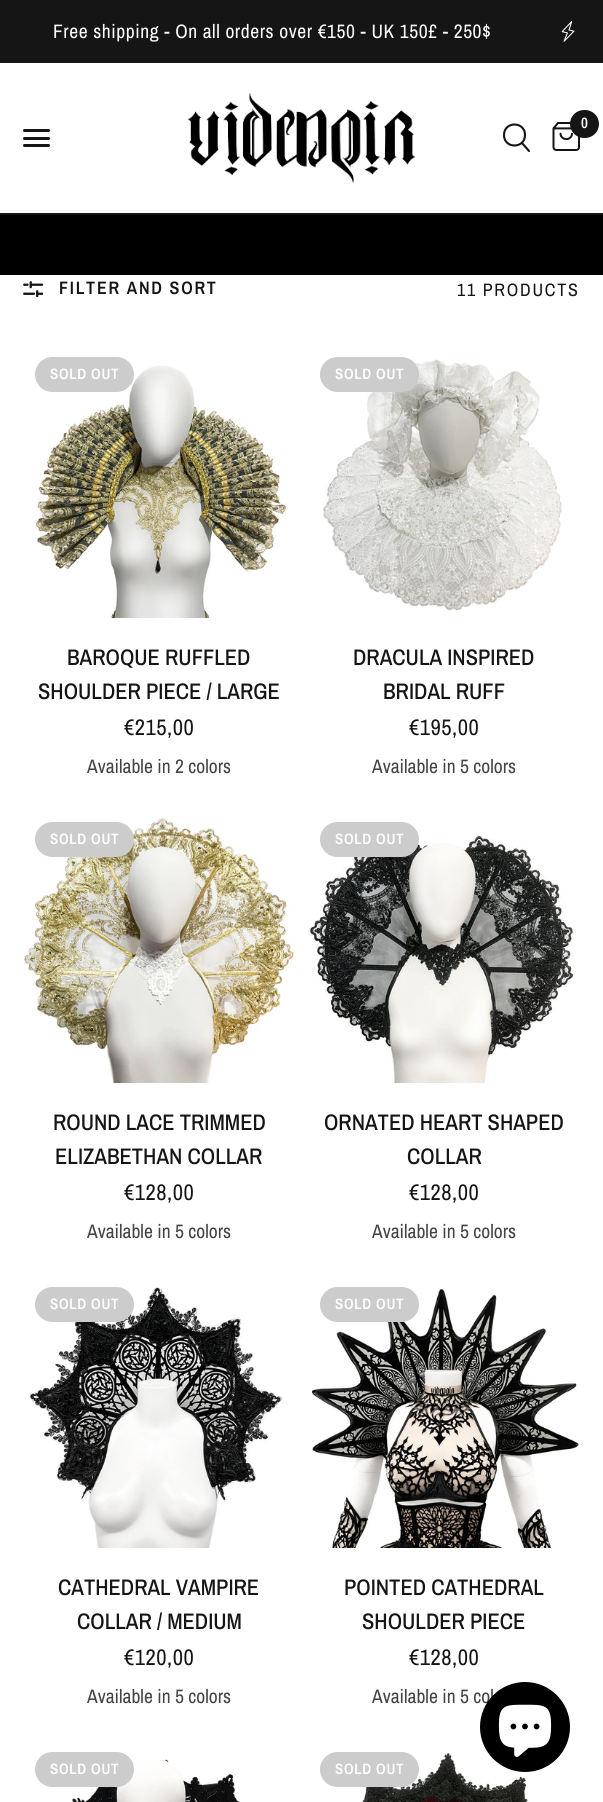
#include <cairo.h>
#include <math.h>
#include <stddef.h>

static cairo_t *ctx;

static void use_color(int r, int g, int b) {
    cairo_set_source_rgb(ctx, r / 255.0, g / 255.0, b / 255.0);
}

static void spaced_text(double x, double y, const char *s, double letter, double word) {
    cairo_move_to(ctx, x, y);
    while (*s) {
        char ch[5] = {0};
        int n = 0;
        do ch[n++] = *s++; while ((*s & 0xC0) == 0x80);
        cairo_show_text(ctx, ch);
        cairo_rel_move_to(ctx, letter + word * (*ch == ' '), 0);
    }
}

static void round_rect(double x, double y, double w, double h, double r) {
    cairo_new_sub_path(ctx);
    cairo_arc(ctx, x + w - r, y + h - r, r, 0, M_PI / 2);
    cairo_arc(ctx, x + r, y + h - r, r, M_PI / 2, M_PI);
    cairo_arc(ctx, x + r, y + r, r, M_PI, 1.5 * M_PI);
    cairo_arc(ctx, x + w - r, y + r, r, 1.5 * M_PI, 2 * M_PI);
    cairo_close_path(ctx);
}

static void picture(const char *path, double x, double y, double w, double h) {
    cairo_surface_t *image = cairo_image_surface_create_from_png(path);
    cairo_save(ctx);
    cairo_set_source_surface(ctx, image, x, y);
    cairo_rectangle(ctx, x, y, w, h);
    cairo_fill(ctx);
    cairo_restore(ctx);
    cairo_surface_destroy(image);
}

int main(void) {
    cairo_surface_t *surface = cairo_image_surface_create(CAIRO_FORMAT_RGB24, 603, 1802);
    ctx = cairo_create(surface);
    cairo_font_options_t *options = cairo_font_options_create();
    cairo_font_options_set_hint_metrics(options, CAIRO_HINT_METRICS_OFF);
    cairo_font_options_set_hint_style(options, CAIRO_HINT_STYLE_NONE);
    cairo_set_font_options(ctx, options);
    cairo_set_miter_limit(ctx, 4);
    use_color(255, 255, 255);
    cairo_paint(ctx);
    use_color(21, 21, 21);
    cairo_rectangle(ctx, 0, 0, 603, 63);
    cairo_fill(ctx);
    cairo_select_font_face(ctx, "Archivo Narrow", CAIRO_FONT_SLANT_NORMAL, CAIRO_FONT_WEIGHT_NORMAL);
    cairo_set_font_size(ctx, 19.5);
    use_color(255, 255, 255);
    spaced_text(53, 38, "Free shipping - On all orders over €150 - UK 150£ - 250$", 0.58, 0);
    picture("img1.png", 561, 21, 14, 21);
    use_color(21, 21, 21);
    cairo_rectangle(ctx, 0, 213, 603, 2);
    cairo_fill(ctx);
    picture("img2.png", 187, 93, 229, 90);
    cairo_new_path(ctx);
    cairo_move_to(ctx, 522, 143);
    cairo_line_to(ctx, 529, 151);
    cairo_move_to(ctx, 525, 135);
    cairo_curve_to(ctx, 525, 149, 504, 149, 504, 135);
    cairo_curve_to(ctx, 504, 121, 525, 121, 525, 135);
    cairo_close_path(ctx);
    cairo_set_line_width(ctx, 2.1);
    cairo_set_line_cap(ctx, CAIRO_LINE_CAP_ROUND);
    cairo_set_line_join(ctx, CAIRO_LINE_JOIN_ROUND);
    cairo_stroke(ctx);
    picture("img3.png", 552, 122, 28, 29);
    round_rect(570, 110, 29, 28, 14);
    cairo_fill(ctx);
    cairo_select_font_face(ctx, "Archivo Narrow SemiBold", CAIRO_FONT_SLANT_NORMAL, CAIRO_FONT_WEIGHT_NORMAL);
    cairo_set_font_size(ctx, 15);
    use_color(255, 255, 255);
    cairo_move_to(ctx, 581, 128);
    cairo_show_text(ctx, "0");
    use_color(21, 21, 21);
    round_rect(23, 129, 27, 3, 1.5);
    cairo_fill(ctx);
    round_rect(23, 137, 27, 3, 1.5);
    cairo_fill(ctx);
    round_rect(23, 144, 27, 3, 1.5);
    cairo_fill(ctx);
    use_color(0, 0, 0);
    cairo_rectangle(ctx, 0, 215, 603, 60);
    cairo_fill(ctx);
    picture("img4.png", 23, 281, 21, 16);
    cairo_set_font_size(ctx, 18);
    use_color(21, 21, 21);
    spaced_text(59, 294, "FILTER AND SORT", 1.75, 0);
    cairo_select_font_face(ctx, "Archivo Narrow", CAIRO_FONT_SLANT_NORMAL, CAIRO_FONT_WEIGHT_NORMAL);
    spaced_text(457, 296, "11 PRODUCTS", 1.75, 0);
    picture("img5.png", 35, 365, 254, 253);
    use_color(204, 204, 204);
    round_rect(35, 357, 99, 35, 17.5);
    cairo_fill(ctx);
    cairo_select_font_face(ctx, "Archivo Narrow SemiBold", CAIRO_FONT_SLANT_NORMAL, CAIRO_FONT_WEIGHT_NORMAL);
    cairo_set_font_size(ctx, 15);
    use_color(255, 255, 255);
    spaced_text(50, 379, "SOLD OUT", 0.75, 0);
    cairo_select_font_face(ctx, "Archivo Narrow Medium", CAIRO_FONT_SLANT_NORMAL, CAIRO_FONT_WEIGHT_NORMAL);
    cairo_set_font_size(ctx, 22.5);
    use_color(21, 21, 21);
    cairo_move_to(ctx, 67, 665);
    cairo_show_text(ctx, "BAROQUE RUFFLED");
    cairo_move_to(ctx, 38, 699);
    cairo_show_text(ctx, "SHOULDER PIECE / LARGE");
    cairo_select_font_face(ctx, "Archivo Narrow", CAIRO_FONT_SLANT_NORMAL, CAIRO_FONT_WEIGHT_NORMAL);
    spaced_text(124, 735, "€215,00", 0.5, 0);
    cairo_set_font_size(ctx, 19.5);
    use_color(68, 68, 68);
    cairo_move_to(ctx, 87, 773);
    cairo_show_text(ctx, "Available in 2 colors");
    picture("img6.png", 322, 359, 240, 252);
    use_color(204, 204, 204);
    round_rect(320, 357, 99, 35, 17.5);
    cairo_fill(ctx);
    cairo_select_font_face(ctx, "Archivo Narrow SemiBold", CAIRO_FONT_SLANT_NORMAL, CAIRO_FONT_WEIGHT_NORMAL);
    cairo_set_font_size(ctx, 15);
    use_color(255, 255, 255);
    spaced_text(335, 379, "SOLD OUT", 0.75, 0);
    cairo_select_font_face(ctx, "Archivo Narrow Medium", CAIRO_FONT_SLANT_NORMAL, CAIRO_FONT_WEIGHT_NORMAL);
    cairo_set_font_size(ctx, 22.5);
    use_color(21, 21, 21);
    cairo_move_to(ctx, 353, 665);
    cairo_show_text(ctx, "DRACULA INSPIRED");
    cairo_move_to(ctx, 383, 699);
    cairo_show_text(ctx, "BRIDAL RUFF");
    cairo_select_font_face(ctx, "Archivo Narrow", CAIRO_FONT_SLANT_NORMAL, CAIRO_FONT_WEIGHT_NORMAL);
    spaced_text(409, 735, "€195,00", 0.5, 0);
    cairo_set_font_size(ctx, 19.5);
    use_color(68, 68, 68);
    cairo_move_to(ctx, 372, 773);
    cairo_show_text(ctx, "Available in 5 colors");
    picture("img7.png", 23, 817, 272, 266);
    use_color(204, 204, 204);
    round_rect(35, 822, 99, 35, 17.5);
    cairo_fill(ctx);
    cairo_select_font_face(ctx, "Archivo Narrow SemiBold", CAIRO_FONT_SLANT_NORMAL, CAIRO_FONT_WEIGHT_NORMAL);
    cairo_set_font_size(ctx, 15);
    use_color(255, 255, 255);
    spaced_text(50, 844, "SOLD OUT", 0.75, 0);
    cairo_select_font_face(ctx, "Archivo Narrow Medium", CAIRO_FONT_SLANT_NORMAL, CAIRO_FONT_WEIGHT_NORMAL);
    cairo_set_font_size(ctx, 22.5);
    use_color(21, 21, 21);
    cairo_move_to(ctx, 53, 1130);
    cairo_show_text(ctx, "ROUND LACE TRIMMED");
    cairo_move_to(ctx, 55, 1164);
    cairo_show_text(ctx, "ELIZABETHAN COLLAR");
    cairo_select_font_face(ctx, "Archivo Narrow", CAIRO_FONT_SLANT_NORMAL, CAIRO_FONT_WEIGHT_NORMAL);
    spaced_text(124, 1200, "€128,00", 0.5, 0);
    cairo_set_font_size(ctx, 19.5);
    use_color(68, 68, 68);
    cairo_move_to(ctx, 87, 1238);
    cairo_show_text(ctx, "Available in 5 colors");
    picture("img8.png", 308, 833, 267, 250);
    use_color(204, 204, 204);
    round_rect(320, 822, 99, 35, 17.5);
    cairo_fill(ctx);
    cairo_select_font_face(ctx, "Archivo Narrow SemiBold", CAIRO_FONT_SLANT_NORMAL, CAIRO_FONT_WEIGHT_NORMAL);
    cairo_set_font_size(ctx, 15);
    use_color(255, 255, 255);
    spaced_text(335, 844, "SOLD OUT", 0.75, 0);
    cairo_select_font_face(ctx, "Archivo Narrow Medium", CAIRO_FONT_SLANT_NORMAL, CAIRO_FONT_WEIGHT_NORMAL);
    cairo_set_font_size(ctx, 22.5);
    use_color(21, 21, 21);
    cairo_move_to(ctx, 324, 1130);
    cairo_show_text(ctx, "ORNATED HEART SHAPED");
    cairo_move_to(ctx, 407, 1164);
    cairo_show_text(ctx, "COLLAR");
    cairo_select_font_face(ctx, "Archivo Narrow", CAIRO_FONT_SLANT_NORMAL, CAIRO_FONT_WEIGHT_NORMAL);
    spaced_text(409, 1200, "€128,00", 0.5, 0);
    cairo_set_font_size(ctx, 19.5);
    use_color(68, 68, 68);
    cairo_move_to(ctx, 372, 1238);
    cairo_show_text(ctx, "Available in 5 colors");
    picture("img9.png", 29, 1287, 255, 261);
    use_color(204, 204, 204);
    round_rect(35, 1287, 99, 35, 17.5);
    cairo_fill(ctx);
    cairo_select_font_face(ctx, "Archivo Narrow SemiBold", CAIRO_FONT_SLANT_NORMAL, CAIRO_FONT_WEIGHT_NORMAL);
    cairo_set_font_size(ctx, 15);
    use_color(255, 255, 255);
    spaced_text(50, 1309, "SOLD OUT", 0.75, 0);
    cairo_select_font_face(ctx, "Archivo Narrow Medium", CAIRO_FONT_SLANT_NORMAL, CAIRO_FONT_WEIGHT_NORMAL);
    cairo_set_font_size(ctx, 22.5);
    use_color(21, 21, 21);
    cairo_move_to(ctx, 58, 1595);
    cairo_show_text(ctx, "CATHEDRAL VAMPIRE");
    cairo_move_to(ctx, 77, 1629);
    cairo_show_text(ctx, "COLLAR / MEDIUM");
    cairo_select_font_face(ctx, "Archivo Narrow", CAIRO_FONT_SLANT_NORMAL, CAIRO_FONT_WEIGHT_NORMAL);
    spaced_text(124, 1665, "€120,00", 0.5, 0);
    cairo_set_font_size(ctx, 19.5);
    use_color(68, 68, 68);
    cairo_move_to(ctx, 87, 1703);
    cairo_show_text(ctx, "Available in 5 colors");
    picture("img10.png", 311, 1289, 268, 259);
    use_color(204, 204, 204);
    round_rect(320, 1287, 99, 35, 17.5);
    cairo_fill(ctx);
    cairo_select_font_face(ctx, "Archivo Narrow SemiBold", CAIRO_FONT_SLANT_NORMAL, CAIRO_FONT_WEIGHT_NORMAL);
    cairo_set_font_size(ctx, 15);
    use_color(255, 255, 255);
    spaced_text(335, 1309, "SOLD OUT", 0.75, 0);
    cairo_select_font_face(ctx, "Archivo Narrow Medium", CAIRO_FONT_SLANT_NORMAL, CAIRO_FONT_WEIGHT_NORMAL);
    cairo_set_font_size(ctx, 22.5);
    use_color(21, 21, 21);
    cairo_move_to(ctx, 344, 1595);
    cairo_show_text(ctx, "POINTED CATHEDRAL");
    cairo_move_to(ctx, 362, 1629);
    cairo_show_text(ctx, "SHOULDER PIECE");
    cairo_select_font_face(ctx, "Archivo Narrow", CAIRO_FONT_SLANT_NORMAL, CAIRO_FONT_WEIGHT_NORMAL);
    spaced_text(409, 1665, "€128,00", 0.5, 0);
    cairo_set_font_size(ctx, 19.5);
    use_color(68, 68, 68);
    cairo_move_to(ctx, 372, 1703);
    cairo_show_text(ctx, "Available in 5 col");
    picture("img11.png", 72, 1759, 168, 43);
    use_color(204, 204, 204);
    round_rect(35, 1752, 99, 35, 17.5);
    cairo_fill(ctx);
    cairo_select_font_face(ctx, "Archivo Narrow SemiBold", CAIRO_FONT_SLANT_NORMAL, CAIRO_FONT_WEIGHT_NORMAL);
    cairo_set_font_size(ctx, 15);
    use_color(255, 255, 255);
    spaced_text(50, 1774, "SOLD OUT", 0.75, 0);
    picture("img12.png", 362, 1753, 167, 49);
    use_color(204, 204, 204);
    round_rect(320, 1752, 99, 35, 17.5);
    cairo_fill(ctx);
    use_color(255, 255, 255);
    spaced_text(335, 1774, "SOLD OUT", 0.75, 0);
    use_color(0, 0, 0);
    cairo_new_path(ctx);
    cairo_arc(ctx, 525, 1727, 45, 0, 2 * M_PI);
    cairo_fill(ctx);
    picture("img13.png", 498, 1704, 54, 53);
    cairo_surface_write_to_png(surface, "result.png");
    cairo_font_options_destroy(options);
    cairo_destroy(ctx);
    cairo_surface_destroy(surface);
    return 0;
}
